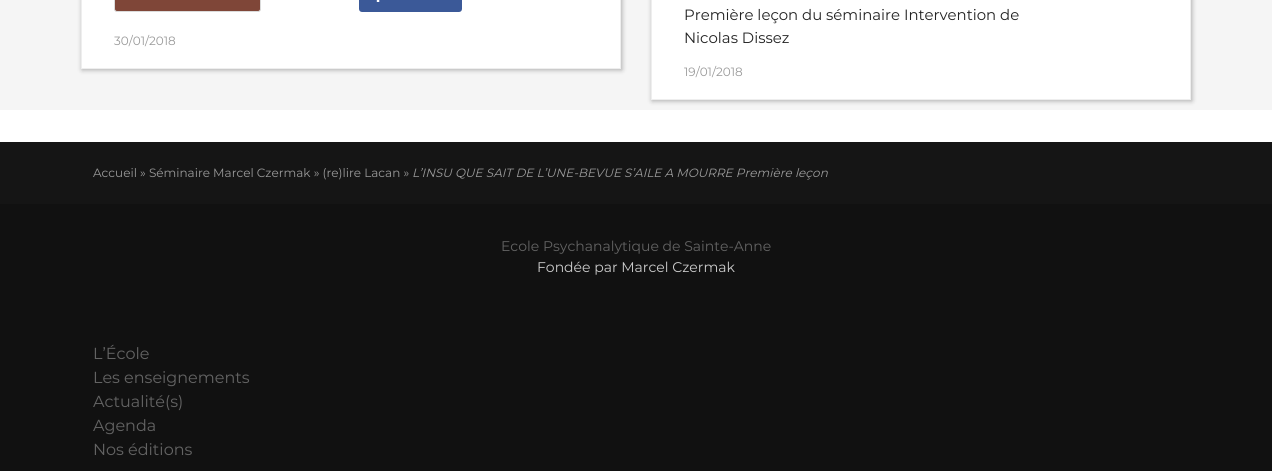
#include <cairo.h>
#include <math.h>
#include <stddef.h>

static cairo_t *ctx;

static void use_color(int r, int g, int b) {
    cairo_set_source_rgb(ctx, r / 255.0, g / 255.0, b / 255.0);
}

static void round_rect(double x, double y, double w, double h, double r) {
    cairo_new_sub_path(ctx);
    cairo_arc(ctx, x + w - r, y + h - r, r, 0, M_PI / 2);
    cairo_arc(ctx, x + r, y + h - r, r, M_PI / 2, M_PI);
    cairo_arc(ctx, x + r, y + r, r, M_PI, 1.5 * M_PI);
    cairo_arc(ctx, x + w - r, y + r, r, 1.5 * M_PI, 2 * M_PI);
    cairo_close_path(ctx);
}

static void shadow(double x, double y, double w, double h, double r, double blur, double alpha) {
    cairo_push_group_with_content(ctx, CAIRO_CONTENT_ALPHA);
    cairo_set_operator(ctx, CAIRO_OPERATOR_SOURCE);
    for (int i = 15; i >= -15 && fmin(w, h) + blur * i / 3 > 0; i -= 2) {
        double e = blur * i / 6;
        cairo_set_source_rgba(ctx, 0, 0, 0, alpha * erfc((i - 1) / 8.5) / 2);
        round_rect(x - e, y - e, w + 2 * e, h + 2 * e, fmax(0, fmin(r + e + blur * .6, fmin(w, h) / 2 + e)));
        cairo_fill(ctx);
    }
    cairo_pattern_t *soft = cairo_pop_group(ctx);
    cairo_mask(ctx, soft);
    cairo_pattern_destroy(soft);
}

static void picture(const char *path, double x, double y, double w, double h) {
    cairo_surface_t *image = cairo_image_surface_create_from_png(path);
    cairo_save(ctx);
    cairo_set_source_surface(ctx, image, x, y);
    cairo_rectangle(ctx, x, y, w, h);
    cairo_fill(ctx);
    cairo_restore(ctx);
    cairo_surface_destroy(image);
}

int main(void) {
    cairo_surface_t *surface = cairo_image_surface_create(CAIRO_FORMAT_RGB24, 1272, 471);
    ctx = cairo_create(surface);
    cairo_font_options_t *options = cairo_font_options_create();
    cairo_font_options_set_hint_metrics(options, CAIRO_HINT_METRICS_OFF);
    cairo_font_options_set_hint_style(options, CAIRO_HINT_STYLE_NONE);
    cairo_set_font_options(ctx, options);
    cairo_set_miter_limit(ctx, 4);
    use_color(255, 255, 255);
    cairo_paint(ctx);
    use_color(245, 245, 245);
    cairo_rectangle(ctx, 0, 0, 1272, 110);
    cairo_fill(ctx);
    use_color(0, 0, 0);
    shadow(82, -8, 540, 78, 0, 2.5, 0.3);
    use_color(255, 255, 255);
    cairo_rectangle(ctx, 81.5, -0.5, 539, 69);
    cairo_fill_preserve(ctx);
    use_color(238, 238, 238);
    cairo_set_line_width(ctx, 1);
    cairo_stroke(ctx);
    use_color(127, 70, 56);
    round_rect(114.5, -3.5, 146, 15, 2.5);
    cairo_fill_preserve(ctx);
    use_color(219, 219, 219);
    cairo_stroke(ctx);
    use_color(59, 89, 152);
    round_rect(359, -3, 103, 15, 3);
    cairo_fill(ctx);
    picture("img1.png", 376, 0, 4, 2);
    cairo_select_font_face(ctx, "Montserrat", CAIRO_FONT_SLANT_NORMAL, CAIRO_FONT_WEIGHT_NORMAL);
    cairo_set_font_size(ctx, 12);
    use_color(153, 153, 153);
    cairo_move_to(ctx, 114, 45);
    cairo_show_text(ctx, "30/01/2018");
    use_color(0, 0, 0);
    shadow(652, -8, 540, 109, 0, 2.5, 0.3);
    use_color(255, 255, 255);
    cairo_rectangle(ctx, 651.5, -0.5, 539, 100);
    cairo_fill_preserve(ctx);
    use_color(238, 238, 238);
    cairo_stroke(ctx);
    cairo_set_font_size(ctx, 14.9);
    use_color(34, 34, 34);
    cairo_move_to(ctx, 684, 20);
    cairo_show_text(ctx, "Première leçon du séminaire Intervention de");
    cairo_move_to(ctx, 684, 43);
    cairo_show_text(ctx, "Nicolas Dissez");
    cairo_set_font_size(ctx, 12);
    use_color(153, 153, 153);
    cairo_move_to(ctx, 684, 76);
    cairo_show_text(ctx, "19/01/2018");
    use_color(21, 21, 21);
    cairo_rectangle(ctx, 0, 142, 1272, 62);
    cairo_fill(ctx);
    use_color(153, 153, 153);
    cairo_move_to(ctx, 93, 177);
    cairo_show_text(ctx, "Accueil » Séminaire Marcel Czermak » (re)lire Lacan »");
    cairo_select_font_face(ctx, "Montserrat", CAIRO_FONT_SLANT_ITALIC, CAIRO_FONT_WEIGHT_NORMAL);
    cairo_move_to(ctx, 412, 177);
    cairo_show_text(ctx, "L’INSU QUE SAIT DE L’UNE-BEVUE S’AILE A MOURRE Première leçon");
    use_color(17, 17, 17);
    cairo_rectangle(ctx, 0, 204, 1272, 267);
    cairo_fill(ctx);
    cairo_select_font_face(ctx, "Montserrat", CAIRO_FONT_SLANT_NORMAL, CAIRO_FONT_WEIGHT_NORMAL);
    cairo_set_font_size(ctx, 14);
    use_color(99, 99, 99);
    cairo_move_to(ctx, 501, 251);
    cairo_show_text(ctx, "Ecole Psychanalytique de Sainte-Anne");
    use_color(204, 204, 204);
    cairo_move_to(ctx, 537, 272);
    cairo_show_text(ctx, "Fondée par Marcel Czermak");
    cairo_set_font_size(ctx, 16);
    use_color(99, 99, 99);
    cairo_move_to(ctx, 93, 359);
    cairo_show_text(ctx, "L’École");
    cairo_move_to(ctx, 93, 383);
    cairo_show_text(ctx, "Les enseignements");
    cairo_move_to(ctx, 93, 407);
    cairo_show_text(ctx, "Actualité(s)");
    cairo_move_to(ctx, 93, 431);
    cairo_show_text(ctx, "Agenda");
    cairo_move_to(ctx, 93, 455);
    cairo_show_text(ctx, "Nos éditions");
    cairo_surface_write_to_png(surface, "result.png");
    cairo_font_options_destroy(options);
    cairo_destroy(ctx);
    cairo_surface_destroy(surface);
    return 0;
}
